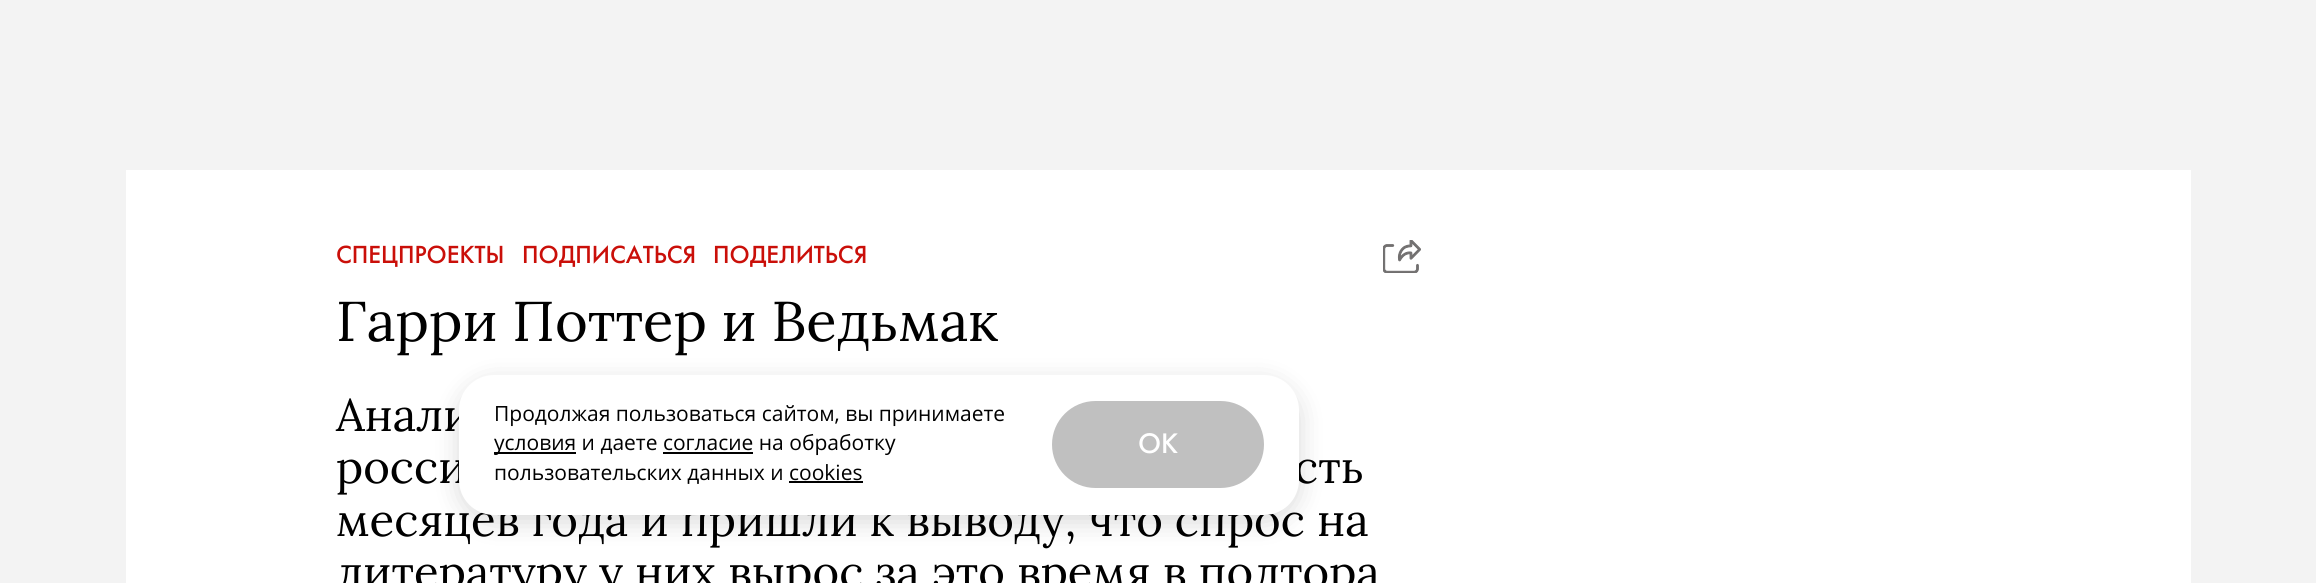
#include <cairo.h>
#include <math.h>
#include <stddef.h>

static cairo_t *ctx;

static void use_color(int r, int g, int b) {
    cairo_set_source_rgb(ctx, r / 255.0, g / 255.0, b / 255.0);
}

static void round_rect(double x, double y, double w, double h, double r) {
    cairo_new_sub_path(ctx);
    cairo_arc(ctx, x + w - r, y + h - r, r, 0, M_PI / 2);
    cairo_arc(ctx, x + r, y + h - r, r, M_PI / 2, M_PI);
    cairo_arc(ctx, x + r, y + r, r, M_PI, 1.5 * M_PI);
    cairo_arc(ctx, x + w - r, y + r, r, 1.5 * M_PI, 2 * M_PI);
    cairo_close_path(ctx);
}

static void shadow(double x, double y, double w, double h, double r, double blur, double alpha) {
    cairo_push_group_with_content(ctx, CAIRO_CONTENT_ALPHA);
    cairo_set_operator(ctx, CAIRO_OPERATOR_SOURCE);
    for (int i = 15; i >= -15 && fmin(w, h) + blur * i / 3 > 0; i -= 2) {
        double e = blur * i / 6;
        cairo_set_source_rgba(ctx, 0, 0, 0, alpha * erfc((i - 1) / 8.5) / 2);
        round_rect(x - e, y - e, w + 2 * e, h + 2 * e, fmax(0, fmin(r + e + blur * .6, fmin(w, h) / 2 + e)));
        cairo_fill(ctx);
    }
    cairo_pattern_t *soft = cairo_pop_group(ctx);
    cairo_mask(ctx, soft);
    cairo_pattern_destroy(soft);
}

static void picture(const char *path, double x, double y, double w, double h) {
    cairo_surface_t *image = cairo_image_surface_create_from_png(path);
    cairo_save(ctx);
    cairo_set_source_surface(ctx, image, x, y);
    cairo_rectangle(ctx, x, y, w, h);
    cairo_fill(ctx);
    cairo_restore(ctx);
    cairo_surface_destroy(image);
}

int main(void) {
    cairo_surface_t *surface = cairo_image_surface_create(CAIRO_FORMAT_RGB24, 2316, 583);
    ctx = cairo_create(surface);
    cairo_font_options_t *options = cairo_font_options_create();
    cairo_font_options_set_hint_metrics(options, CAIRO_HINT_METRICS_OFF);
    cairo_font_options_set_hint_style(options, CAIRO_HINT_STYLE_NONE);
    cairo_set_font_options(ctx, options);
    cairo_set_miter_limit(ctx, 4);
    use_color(243, 243, 243);
    cairo_paint(ctx);
    use_color(255, 255, 255);
    cairo_rectangle(ctx, 126, 170, 2065, 413);
    cairo_fill(ctx);
    cairo_select_font_face(ctx, "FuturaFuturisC", CAIRO_FONT_SLANT_NORMAL, CAIRO_FONT_WEIGHT_NORMAL);
    cairo_set_font_size(ctx, 24.5);
    use_color(202, 15, 9);
    cairo_move_to(ctx, 336, 263);
    cairo_show_text(ctx, "СПЕЦПРОЕКТЫ");
    cairo_move_to(ctx, 522, 263);
    cairo_show_text(ctx, "ПОДПИСАТЬСЯ");
    cairo_move_to(ctx, 713, 263);
    cairo_show_text(ctx, "ПОДЕЛИТЬСЯ");
    picture("img1.png", 1383, 240, 38, 33);
    cairo_select_font_face(ctx, "Lora", CAIRO_FONT_SLANT_NORMAL, CAIRO_FONT_WEIGHT_NORMAL);
    cairo_set_font_size(ctx, 56);
    use_color(0, 0, 0);
    cairo_move_to(ctx, 336, 341);
    cairo_show_text(ctx, "Гарри Поттер и Ведьмак");
    cairo_set_font_size(ctx, 45.5);
    cairo_move_to(ctx, 336, 431);
    cairo_show_text(ctx, "Анали");
    cairo_move_to(ctx, 336, 483);
    cairo_show_text(ctx, "росси");
    cairo_move_to(ctx, 1294, 483);
    cairo_show_text(ctx, "сть");
    cairo_move_to(ctx, 336, 536);
    cairo_show_text(ctx, "месяцев года и пришли к выводу, что спрос на");
    cairo_move_to(ctx, 336, 588);
    cairo_show_text(ctx, "литературу у них вырос за это время в полтора");
    use_color(0, 0, 0);
    shadow(459, 382, 840, 140, 35, 13, 0.15);
    use_color(255, 255, 255);
    round_rect(459, 375, 840, 140, 35);
    cairo_fill(ctx);
    cairo_select_font_face(ctx, "Open Sans", CAIRO_FONT_SLANT_NORMAL, CAIRO_FONT_WEIGHT_NORMAL);
    cairo_set_font_size(ctx, 21);
    use_color(0, 0, 0);
    cairo_move_to(ctx, 494, 421);
    cairo_show_text(ctx, "Продолжая пользоваться сайтом, вы принимаете");
    cairo_rectangle(ctx, 494, 452, 82, 2);
    cairo_fill(ctx);
    cairo_move_to(ctx, 494, 450);
    cairo_show_text(ctx, "условия и даете согласие на обработку");
    cairo_rectangle(ctx, 663, 452, 90, 2);
    cairo_fill(ctx);
    cairo_move_to(ctx, 494, 480);
    cairo_show_text(ctx, "пользовательских данных и cookies");
    cairo_rectangle(ctx, 789, 481, 74, 2);
    cairo_fill(ctx);
    use_color(192, 192, 192);
    round_rect(1052, 401, 212, 87, 43.5);
    cairo_fill(ctx);
    cairo_select_font_face(ctx, "FuturaFuturisC", CAIRO_FONT_SLANT_NORMAL, CAIRO_FONT_WEIGHT_NORMAL);
    cairo_set_font_size(ctx, 28);
    use_color(255, 255, 255);
    cairo_move_to(ctx, 1138, 453);
    cairo_show_text(ctx, "OK");
    cairo_surface_write_to_png(surface, "result.png");
    cairo_font_options_destroy(options);
    cairo_destroy(ctx);
    cairo_surface_destroy(surface);
    return 0;
}
